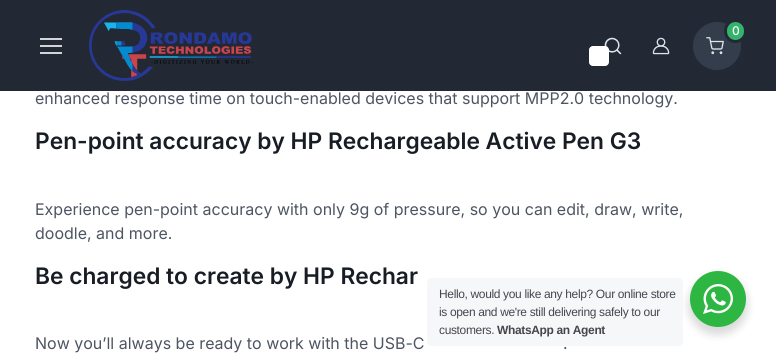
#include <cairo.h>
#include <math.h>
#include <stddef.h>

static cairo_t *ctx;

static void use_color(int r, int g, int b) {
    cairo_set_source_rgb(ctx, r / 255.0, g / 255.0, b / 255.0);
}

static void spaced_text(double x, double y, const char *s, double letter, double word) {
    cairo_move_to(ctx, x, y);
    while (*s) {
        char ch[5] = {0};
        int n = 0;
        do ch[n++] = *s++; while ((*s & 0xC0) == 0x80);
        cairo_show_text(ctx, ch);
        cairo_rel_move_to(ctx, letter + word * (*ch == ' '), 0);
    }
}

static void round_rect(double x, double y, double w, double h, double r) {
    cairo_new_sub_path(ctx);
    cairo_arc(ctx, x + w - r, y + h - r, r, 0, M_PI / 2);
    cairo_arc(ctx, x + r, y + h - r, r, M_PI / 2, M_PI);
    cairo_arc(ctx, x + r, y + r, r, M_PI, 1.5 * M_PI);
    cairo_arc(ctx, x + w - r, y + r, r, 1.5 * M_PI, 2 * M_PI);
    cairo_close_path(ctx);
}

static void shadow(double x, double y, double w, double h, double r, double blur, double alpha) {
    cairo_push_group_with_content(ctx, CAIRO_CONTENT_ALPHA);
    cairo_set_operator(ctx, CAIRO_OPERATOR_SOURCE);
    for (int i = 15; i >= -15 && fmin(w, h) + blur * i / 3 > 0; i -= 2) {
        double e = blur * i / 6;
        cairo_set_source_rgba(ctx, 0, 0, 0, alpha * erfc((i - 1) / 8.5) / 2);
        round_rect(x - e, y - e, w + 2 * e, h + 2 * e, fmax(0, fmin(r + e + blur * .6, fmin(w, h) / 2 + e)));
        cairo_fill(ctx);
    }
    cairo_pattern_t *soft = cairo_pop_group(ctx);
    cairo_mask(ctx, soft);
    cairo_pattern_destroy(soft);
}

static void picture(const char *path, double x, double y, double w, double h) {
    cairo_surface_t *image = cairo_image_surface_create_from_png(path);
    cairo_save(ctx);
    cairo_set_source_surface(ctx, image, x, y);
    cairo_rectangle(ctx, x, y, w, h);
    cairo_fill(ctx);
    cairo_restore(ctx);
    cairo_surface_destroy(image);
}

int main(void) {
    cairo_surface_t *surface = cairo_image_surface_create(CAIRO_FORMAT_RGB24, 776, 357);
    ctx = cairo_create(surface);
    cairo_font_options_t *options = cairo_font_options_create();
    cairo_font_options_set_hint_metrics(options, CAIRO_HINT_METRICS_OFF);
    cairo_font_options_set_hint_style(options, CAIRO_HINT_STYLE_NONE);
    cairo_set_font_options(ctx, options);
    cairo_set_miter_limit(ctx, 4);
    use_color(255, 255, 255);
    cairo_paint(ctx);
    use_color(34, 41, 52);
    cairo_rectangle(ctx, 0, 0, 776, 91);
    cairo_fill(ctx);
    use_color(211, 212, 214);
    cairo_rectangle(ctx, 40, 45, 22, 2);
    cairo_fill(ctx);
    cairo_rectangle(ctx, 40, 38, 22, 2);
    cairo_fill(ctx);
    cairo_rectangle(ctx, 40, 52, 22, 2);
    cairo_fill(ctx);
    picture("img1.png", 89, 10, 164, 71);
    use_color(51, 61, 76);
    cairo_arc(ctx, 717, 46, 23.5, 0, 2 * M_PI);
    cairo_fill_preserve(ctx);
    cairo_set_line_width(ctx, 1);
    cairo_stroke(ctx);
    use_color(51, 179, 107);
    round_rect(725.5, 20.5, 20, 21, 10);
    cairo_fill_preserve(ctx);
    use_color(34, 41, 52);
    cairo_set_line_width(ctx, 3);
    cairo_stroke(ctx);
    cairo_select_font_face(ctx, "Inter Medium", CAIRO_FONT_SLANT_NORMAL, CAIRO_FONT_WEIGHT_NORMAL);
    cairo_set_font_size(ctx, 12);
    use_color(255, 255, 255);
    cairo_move_to(ctx, 732, 35);
    cairo_show_text(ctx, "0");
    picture("img2.png", 706, 37, 18, 18);
    picture("img3.png", 604, 37, 18, 18);
    picture("img4.png", 652, 37, 18, 18);
    round_rect(589, 46, 20, 20, 4);
    cairo_fill(ctx);
    cairo_select_font_face(ctx, "Inter", CAIRO_FONT_SLANT_NORMAL, CAIRO_FONT_WEIGHT_NORMAL);
    cairo_set_font_size(ctx, 16);
    use_color(78, 85, 98);
    cairo_move_to(ctx, 35, 104);
    cairo_show_text(ctx, "enhanced response time on touch-enabled devices that support MPP2.0 technology.");
    cairo_select_font_face(ctx, "Inter SemiBold", CAIRO_FONT_SLANT_NORMAL, CAIRO_FONT_WEIGHT_NORMAL);
    cairo_set_font_size(ctx, 22.75);
    use_color(24, 29, 37);
    cairo_move_to(ctx, 35, 149);
    cairo_show_text(ctx, "Pen-point accuracy by HP Rechargeable Active Pen G3");
    cairo_select_font_face(ctx, "Inter", CAIRO_FONT_SLANT_NORMAL, CAIRO_FONT_WEIGHT_NORMAL);
    cairo_set_font_size(ctx, 16);
    use_color(78, 85, 98);
    cairo_move_to(ctx, 35, 215);
    cairo_show_text(ctx, "Experience pen-point accuracy with only 9g of pressure, so you can edit, draw, write,");
    cairo_move_to(ctx, 35, 239);
    cairo_show_text(ctx, "doodle, and more.");
    cairo_select_font_face(ctx, "Inter SemiBold", CAIRO_FONT_SLANT_NORMAL, CAIRO_FONT_WEIGHT_NORMAL);
    cairo_set_font_size(ctx, 22.75);
    use_color(24, 29, 37);
    cairo_move_to(ctx, 35, 284);
    cairo_show_text(ctx, "Be charged to create by HP Rechar");
    cairo_select_font_face(ctx, "Inter", CAIRO_FONT_SLANT_NORMAL, CAIRO_FONT_WEIGHT_NORMAL);
    cairo_set_font_size(ctx, 16);
    use_color(78, 85, 98);
    cairo_move_to(ctx, 35, 349);
    cairo_show_text(ctx, "Now you’ll always be ready to work with the USB-C");
    cairo_move_to(ctx, 563, 349);
    cairo_show_text(ctx, ".");
    use_color(0, 0, 0);
    shadow(688, 275, 60, 60, 30, 4, 0.14);
    use_color(245, 247, 249);
    round_rect(427, 278, 256, 68, 4);
    cairo_fill(ctx);
    cairo_select_font_face(ctx, "Liberation Sans", CAIRO_FONT_SLANT_NORMAL, CAIRO_FONT_WEIGHT_NORMAL);
    cairo_set_font_size(ctx, 12);
    use_color(67, 71, 78);
    spaced_text(439, 298, "Hello, would you like any help? Our online store", -0.35, 0);
    spaced_text(439, 316, "is open and we're still delivering safely to our", -0.35, 0);
    spaced_text(439, 334, "customers.", -0.35, 0);
    cairo_select_font_face(ctx, "Liberation Sans", CAIRO_FONT_SLANT_NORMAL, CAIRO_FONT_WEIGHT_BOLD);
    spaced_text(497, 334, "WhatsApp an Agent", -0.35, 0);
    use_color(45, 183, 66);
    cairo_new_path(ctx);
    cairo_arc(ctx, 718, 299, 28, 0, 2 * M_PI);
    cairo_fill(ctx);
    picture("img5.png", 703, 284, 30, 30);
    cairo_surface_write_to_png(surface, "result.png");
    cairo_font_options_destroy(options);
    cairo_destroy(ctx);
    cairo_surface_destroy(surface);
    return 0;
}
